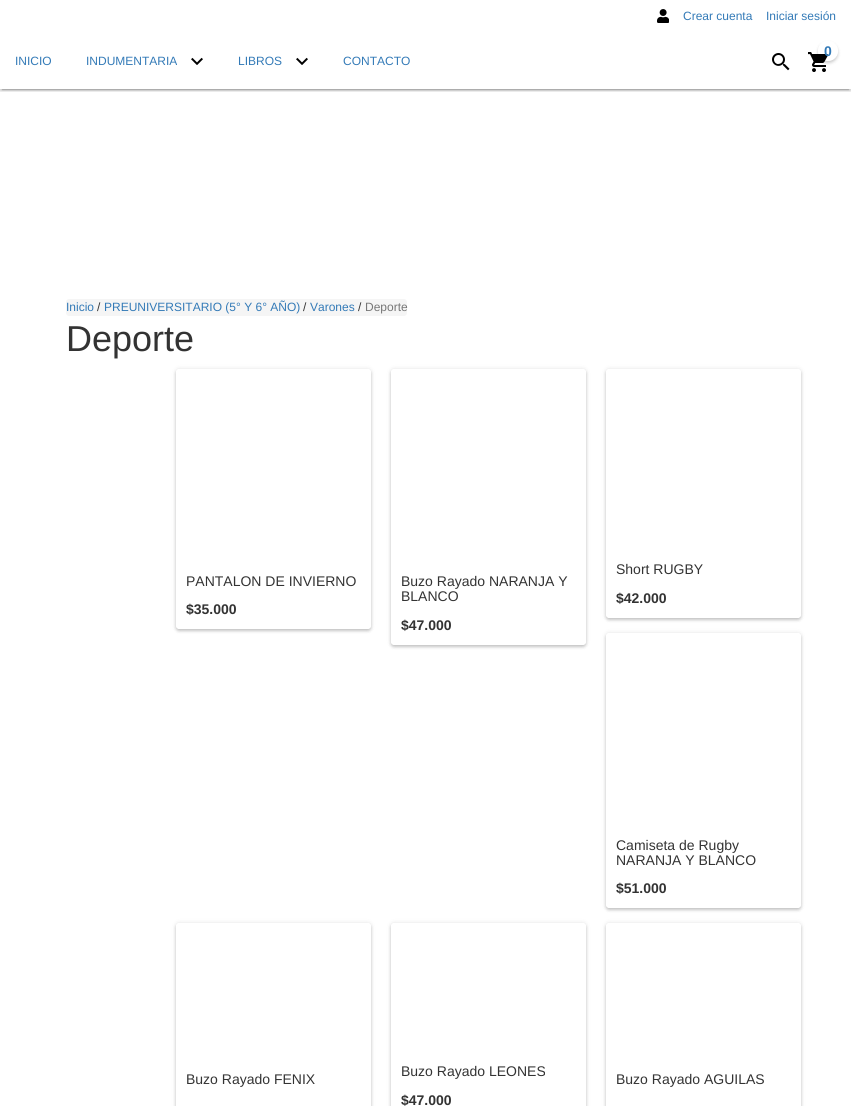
#include <cairo.h>
#include <math.h>
#include <stddef.h>

static cairo_t *ctx;

static void use_color(int r, int g, int b) {
    cairo_set_source_rgb(ctx, r / 255.0, g / 255.0, b / 255.0);
}

static void round_rect(double x, double y, double w, double h, double r) {
    cairo_new_sub_path(ctx);
    cairo_arc(ctx, x + w - r, y + h - r, r, 0, M_PI / 2);
    cairo_arc(ctx, x + r, y + h - r, r, M_PI / 2, M_PI);
    cairo_arc(ctx, x + r, y + r, r, M_PI, 1.5 * M_PI);
    cairo_arc(ctx, x + w - r, y + r, r, 1.5 * M_PI, 2 * M_PI);
    cairo_close_path(ctx);
}

static void shadow(double x, double y, double w, double h, double r, double blur, double alpha) {
    cairo_push_group_with_content(ctx, CAIRO_CONTENT_ALPHA);
    cairo_set_operator(ctx, CAIRO_OPERATOR_SOURCE);
    for (int i = 15; i >= -15 && fmin(w, h) + blur * i / 3 > 0; i -= 2) {
        double e = blur * i / 6;
        cairo_set_source_rgba(ctx, 0, 0, 0, alpha * erfc((i - 1) / 8.5) / 2);
        round_rect(x - e, y - e, w + 2 * e, h + 2 * e, fmax(0, fmin(r + e + blur * .6, fmin(w, h) / 2 + e)));
        cairo_fill(ctx);
    }
    cairo_pattern_t *soft = cairo_pop_group(ctx);
    cairo_mask(ctx, soft);
    cairo_pattern_destroy(soft);
}

static void picture(const char *path, double x, double y, double w, double h) {
    cairo_surface_t *image = cairo_image_surface_create_from_png(path);
    cairo_save(ctx);
    cairo_set_source_surface(ctx, image, x, y);
    cairo_rectangle(ctx, x, y, w, h);
    cairo_fill(ctx);
    cairo_restore(ctx);
    cairo_surface_destroy(image);
}

int main(void) {
    cairo_surface_t *surface = cairo_image_surface_create(CAIRO_FORMAT_RGB24, 851, 1106);
    ctx = cairo_create(surface);
    cairo_font_options_t *options = cairo_font_options_create();
    cairo_font_options_set_hint_metrics(options, CAIRO_HINT_METRICS_OFF);
    cairo_font_options_set_hint_style(options, CAIRO_HINT_STYLE_NONE);
    cairo_set_font_options(ctx, options);
    cairo_set_miter_limit(ctx, 4);
    use_color(255, 255, 255);
    cairo_paint(ctx);
    cairo_save(ctx);
    cairo_rectangle(ctx, 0, 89, 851, 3);
    cairo_clip(ctx);
    use_color(0, 0, 0);
    shadow(0, 1, 851, 89, 0, 2.5, 0.12);
    cairo_restore(ctx);
    cairo_save(ctx);
    cairo_rectangle(ctx, 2, 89, 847, 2);
    cairo_clip(ctx);
    use_color(0, 0, 0);
    shadow(2, 5, 847, 85, 0, 0.5, 0.2);
    cairo_restore(ctx);
    cairo_save(ctx);
    cairo_rectangle(ctx, 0, 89, 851, 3);
    cairo_clip(ctx);
    use_color(0, 0, 0);
    shadow(0, 2, 851, 89, 0, 1, 0.14);
    cairo_restore(ctx);
    picture("img1.png", 657, 9, 12, 14);
    cairo_select_font_face(ctx, "Liberation Sans", CAIRO_FONT_SLANT_NORMAL, CAIRO_FONT_WEIGHT_NORMAL);
    cairo_set_font_size(ctx, 12);
    use_color(51, 122, 183);
    cairo_move_to(ctx, 683, 20);
    cairo_show_text(ctx, "Crear cuenta");
    cairo_move_to(ctx, 766, 20);
    cairo_show_text(ctx, "Iniciar sesión");
    picture("img2.png", 808, 52, 20, 20);
    cairo_save(ctx);
    cairo_set_fill_rule(ctx, CAIRO_FILL_RULE_EVEN_ODD);
    cairo_new_path(ctx);
    cairo_move_to(ctx, 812, 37);
    cairo_line_to(ctx, 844, 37);
    cairo_line_to(ctx, 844, 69);
    cairo_line_to(ctx, 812, 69);
    cairo_close_path(ctx);
    cairo_move_to(ctx, 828, 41);
    cairo_curve_to(ctx, 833.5, 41, 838, 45.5, 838, 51);
    cairo_curve_to(ctx, 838, 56.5, 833.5, 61, 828, 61);
    cairo_curve_to(ctx, 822.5, 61, 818, 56.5, 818, 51);
    cairo_curve_to(ctx, 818, 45.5, 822.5, 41, 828, 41);
    cairo_close_path(ctx);
    cairo_clip(ctx);
    use_color(0, 0, 0);
    shadow(818, 43, 20, 20, 10, 1.5, 0.2);
    cairo_restore(ctx);
    cairo_select_font_face(ctx, "Liberation Sans", CAIRO_FONT_SLANT_NORMAL, CAIRO_FONT_WEIGHT_BOLD);
    cairo_set_font_size(ctx, 14);
    cairo_move_to(ctx, 824, 56);
    cairo_show_text(ctx, "0");
    picture("img3.png", 772, 53, 18, 18);
    cairo_select_font_face(ctx, "Liberation Sans", CAIRO_FONT_SLANT_NORMAL, CAIRO_FONT_WEIGHT_NORMAL);
    cairo_set_font_size(ctx, 12);
    cairo_move_to(ctx, 15, 65);
    cairo_show_text(ctx, "INICIO");
    cairo_move_to(ctx, 86, 65);
    cairo_show_text(ctx, "INDUMENTARIA");
    picture("img4.png", 191, 57, 12, 8);
    cairo_move_to(ctx, 238, 65);
    cairo_show_text(ctx, "LIBROS");
    picture("img4.png", 296, 57, 12, 8);
    cairo_move_to(ctx, 343, 65);
    cairo_show_text(ctx, "CONTACTO");
    use_color(245, 245, 245);
    round_rect(66, 299, 341, 17, 3);
    cairo_fill(ctx);
    use_color(51, 122, 183);
    cairo_move_to(ctx, 66, 311);
    cairo_show_text(ctx, "Inicio");
    use_color(51, 51, 51);
    cairo_move_to(ctx, 97, 311);
    cairo_show_text(ctx, "/");
    use_color(51, 122, 183);
    cairo_move_to(ctx, 104, 311);
    cairo_show_text(ctx, "PREUNIVERSITARIO (5° Y 6° AÑO)");
    use_color(51, 51, 51);
    cairo_move_to(ctx, 303, 311);
    cairo_show_text(ctx, "/");
    use_color(51, 122, 183);
    cairo_move_to(ctx, 310, 311);
    cairo_show_text(ctx, "Varones");
    use_color(51, 51, 51);
    cairo_move_to(ctx, 358, 311);
    cairo_show_text(ctx, "/");
    use_color(119, 119, 119);
    cairo_move_to(ctx, 365, 311);
    cairo_show_text(ctx, "Deporte");
    cairo_set_font_size(ctx, 36);
    use_color(51, 51, 51);
    cairo_move_to(ctx, 66, 351);
    cairo_show_text(ctx, "Deporte");
    cairo_save(ctx);
    cairo_set_fill_rule(ctx, CAIRO_FILL_RULE_EVEN_ODD);
    cairo_new_path(ctx);
    cairo_move_to(ctx, 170, 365);
    cairo_line_to(ctx, 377, 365);
    cairo_line_to(ctx, 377, 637);
    cairo_line_to(ctx, 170, 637);
    cairo_close_path(ctx);
    cairo_move_to(ctx, 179, 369);
    cairo_line_to(ctx, 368, 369);
    cairo_curve_to(ctx, 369.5, 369, 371, 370.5, 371, 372);
    cairo_line_to(ctx, 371, 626);
    cairo_curve_to(ctx, 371, 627.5, 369.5, 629, 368, 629);
    cairo_line_to(ctx, 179, 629);
    cairo_curve_to(ctx, 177.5, 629, 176, 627.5, 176, 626);
    cairo_line_to(ctx, 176, 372);
    cairo_curve_to(ctx, 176, 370.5, 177.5, 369, 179, 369);
    cairo_close_path(ctx);
    cairo_clip(ctx);
    use_color(0, 0, 0);
    shadow(176, 371, 195, 260, 3, 1.5, 0.2);
    cairo_restore(ctx);
    cairo_save(ctx);
    cairo_set_fill_rule(ctx, CAIRO_FILL_RULE_EVEN_ODD);
    cairo_new_path(ctx);
    cairo_move_to(ctx, 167, 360);
    cairo_line_to(ctx, 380, 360);
    cairo_line_to(ctx, 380, 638);
    cairo_line_to(ctx, 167, 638);
    cairo_close_path(ctx);
    cairo_move_to(ctx, 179, 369);
    cairo_line_to(ctx, 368, 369);
    cairo_curve_to(ctx, 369.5, 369, 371, 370.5, 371, 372);
    cairo_line_to(ctx, 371, 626);
    cairo_curve_to(ctx, 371, 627.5, 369.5, 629, 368, 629);
    cairo_line_to(ctx, 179, 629);
    cairo_curve_to(ctx, 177.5, 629, 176, 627.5, 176, 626);
    cairo_line_to(ctx, 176, 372);
    cairo_curve_to(ctx, 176, 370.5, 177.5, 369, 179, 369);
    cairo_close_path(ctx);
    cairo_clip(ctx);
    use_color(0, 0, 0);
    shadow(176, 369, 195, 260, 3, 2.5, 0.1);
    cairo_restore(ctx);
    cairo_set_font_size(ctx, 14);
    cairo_move_to(ctx, 186, 586);
    cairo_show_text(ctx, "PANTALON DE INVIERNO");
    cairo_select_font_face(ctx, "Liberation Sans", CAIRO_FONT_SLANT_NORMAL, CAIRO_FONT_WEIGHT_BOLD);
    cairo_move_to(ctx, 186, 614);
    cairo_show_text(ctx, "$35.000");
    cairo_save(ctx);
    cairo_set_fill_rule(ctx, CAIRO_FILL_RULE_EVEN_ODD);
    cairo_new_path(ctx);
    cairo_move_to(ctx, 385, 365);
    cairo_line_to(ctx, 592, 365);
    cairo_line_to(ctx, 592, 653);
    cairo_line_to(ctx, 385, 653);
    cairo_close_path(ctx);
    cairo_move_to(ctx, 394, 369);
    cairo_line_to(ctx, 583, 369);
    cairo_curve_to(ctx, 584.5, 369, 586, 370.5, 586, 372);
    cairo_line_to(ctx, 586, 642);
    cairo_curve_to(ctx, 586, 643.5, 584.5, 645, 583, 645);
    cairo_line_to(ctx, 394, 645);
    cairo_curve_to(ctx, 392.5, 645, 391, 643.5, 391, 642);
    cairo_line_to(ctx, 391, 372);
    cairo_curve_to(ctx, 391, 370.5, 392.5, 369, 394, 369);
    cairo_close_path(ctx);
    cairo_clip(ctx);
    use_color(0, 0, 0);
    shadow(391, 371, 195, 276, 3, 1.5, 0.2);
    cairo_restore(ctx);
    cairo_save(ctx);
    cairo_set_fill_rule(ctx, CAIRO_FILL_RULE_EVEN_ODD);
    cairo_new_path(ctx);
    cairo_move_to(ctx, 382, 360);
    cairo_line_to(ctx, 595, 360);
    cairo_line_to(ctx, 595, 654);
    cairo_line_to(ctx, 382, 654);
    cairo_close_path(ctx);
    cairo_move_to(ctx, 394, 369);
    cairo_line_to(ctx, 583, 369);
    cairo_curve_to(ctx, 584.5, 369, 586, 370.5, 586, 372);
    cairo_line_to(ctx, 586, 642);
    cairo_curve_to(ctx, 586, 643.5, 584.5, 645, 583, 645);
    cairo_line_to(ctx, 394, 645);
    cairo_curve_to(ctx, 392.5, 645, 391, 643.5, 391, 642);
    cairo_line_to(ctx, 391, 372);
    cairo_curve_to(ctx, 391, 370.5, 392.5, 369, 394, 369);
    cairo_close_path(ctx);
    cairo_clip(ctx);
    use_color(0, 0, 0);
    shadow(391, 369, 195, 276, 3, 2.5, 0.1);
    cairo_restore(ctx);
    cairo_select_font_face(ctx, "Liberation Sans", CAIRO_FONT_SLANT_NORMAL, CAIRO_FONT_WEIGHT_NORMAL);
    cairo_move_to(ctx, 401, 586);
    cairo_show_text(ctx, "Buzo Rayado NARANJA Y");
    cairo_move_to(ctx, 401, 601);
    cairo_show_text(ctx, "BLANCO");
    cairo_select_font_face(ctx, "Liberation Sans", CAIRO_FONT_SLANT_NORMAL, CAIRO_FONT_WEIGHT_BOLD);
    cairo_move_to(ctx, 401, 630);
    cairo_show_text(ctx, "$47.000");
    cairo_save(ctx);
    cairo_set_fill_rule(ctx, CAIRO_FILL_RULE_EVEN_ODD);
    cairo_new_path(ctx);
    cairo_move_to(ctx, 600, 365);
    cairo_line_to(ctx, 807, 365);
    cairo_line_to(ctx, 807, 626);
    cairo_line_to(ctx, 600, 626);
    cairo_close_path(ctx);
    cairo_move_to(ctx, 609, 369);
    cairo_line_to(ctx, 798, 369);
    cairo_curve_to(ctx, 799.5, 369, 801, 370.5, 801, 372);
    cairo_line_to(ctx, 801, 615);
    cairo_curve_to(ctx, 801, 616.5, 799.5, 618, 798, 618);
    cairo_line_to(ctx, 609, 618);
    cairo_curve_to(ctx, 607.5, 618, 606, 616.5, 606, 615);
    cairo_line_to(ctx, 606, 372);
    cairo_curve_to(ctx, 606, 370.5, 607.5, 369, 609, 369);
    cairo_close_path(ctx);
    cairo_clip(ctx);
    use_color(0, 0, 0);
    shadow(606, 371, 195, 249, 3, 1.5, 0.2);
    cairo_restore(ctx);
    cairo_save(ctx);
    cairo_set_fill_rule(ctx, CAIRO_FILL_RULE_EVEN_ODD);
    cairo_new_path(ctx);
    cairo_move_to(ctx, 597, 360);
    cairo_line_to(ctx, 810, 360);
    cairo_line_to(ctx, 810, 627);
    cairo_line_to(ctx, 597, 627);
    cairo_close_path(ctx);
    cairo_move_to(ctx, 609, 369);
    cairo_line_to(ctx, 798, 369);
    cairo_curve_to(ctx, 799.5, 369, 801, 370.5, 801, 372);
    cairo_line_to(ctx, 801, 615);
    cairo_curve_to(ctx, 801, 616.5, 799.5, 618, 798, 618);
    cairo_line_to(ctx, 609, 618);
    cairo_curve_to(ctx, 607.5, 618, 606, 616.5, 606, 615);
    cairo_line_to(ctx, 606, 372);
    cairo_curve_to(ctx, 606, 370.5, 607.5, 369, 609, 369);
    cairo_close_path(ctx);
    cairo_clip(ctx);
    use_color(0, 0, 0);
    shadow(606, 369, 195, 249, 3, 2.5, 0.1);
    cairo_restore(ctx);
    cairo_select_font_face(ctx, "Liberation Sans", CAIRO_FONT_SLANT_NORMAL, CAIRO_FONT_WEIGHT_NORMAL);
    cairo_move_to(ctx, 616, 574);
    cairo_show_text(ctx, "Short RUGBY");
    cairo_select_font_face(ctx, "Liberation Sans", CAIRO_FONT_SLANT_NORMAL, CAIRO_FONT_WEIGHT_BOLD);
    cairo_move_to(ctx, 616, 603);
    cairo_show_text(ctx, "$42.000");
    cairo_save(ctx);
    cairo_set_fill_rule(ctx, CAIRO_FILL_RULE_EVEN_ODD);
    cairo_new_path(ctx);
    cairo_move_to(ctx, 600, 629);
    cairo_line_to(ctx, 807, 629);
    cairo_line_to(ctx, 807, 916);
    cairo_line_to(ctx, 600, 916);
    cairo_close_path(ctx);
    cairo_move_to(ctx, 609, 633);
    cairo_line_to(ctx, 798, 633);
    cairo_curve_to(ctx, 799.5, 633, 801, 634.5, 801, 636);
    cairo_line_to(ctx, 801, 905);
    cairo_curve_to(ctx, 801, 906.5, 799.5, 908, 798, 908);
    cairo_line_to(ctx, 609, 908);
    cairo_curve_to(ctx, 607.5, 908, 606, 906.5, 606, 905);
    cairo_line_to(ctx, 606, 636);
    cairo_curve_to(ctx, 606, 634.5, 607.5, 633, 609, 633);
    cairo_close_path(ctx);
    cairo_clip(ctx);
    use_color(0, 0, 0);
    shadow(606, 635, 195, 275, 3, 1.5, 0.2);
    cairo_restore(ctx);
    cairo_save(ctx);
    cairo_set_fill_rule(ctx, CAIRO_FILL_RULE_EVEN_ODD);
    cairo_new_path(ctx);
    cairo_move_to(ctx, 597, 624);
    cairo_line_to(ctx, 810, 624);
    cairo_line_to(ctx, 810, 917);
    cairo_line_to(ctx, 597, 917);
    cairo_close_path(ctx);
    cairo_move_to(ctx, 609, 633);
    cairo_line_to(ctx, 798, 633);
    cairo_curve_to(ctx, 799.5, 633, 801, 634.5, 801, 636);
    cairo_line_to(ctx, 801, 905);
    cairo_curve_to(ctx, 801, 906.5, 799.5, 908, 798, 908);
    cairo_line_to(ctx, 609, 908);
    cairo_curve_to(ctx, 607.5, 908, 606, 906.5, 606, 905);
    cairo_line_to(ctx, 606, 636);
    cairo_curve_to(ctx, 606, 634.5, 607.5, 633, 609, 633);
    cairo_close_path(ctx);
    cairo_clip(ctx);
    use_color(0, 0, 0);
    shadow(606, 633, 195, 275, 3, 2.5, 0.1);
    cairo_restore(ctx);
    cairo_select_font_face(ctx, "Liberation Sans", CAIRO_FONT_SLANT_NORMAL, CAIRO_FONT_WEIGHT_NORMAL);
    cairo_move_to(ctx, 616, 850);
    cairo_show_text(ctx, "Camiseta de Rugby");
    cairo_move_to(ctx, 616, 865);
    cairo_show_text(ctx, "NARANJA Y BLANCO");
    cairo_select_font_face(ctx, "Liberation Sans", CAIRO_FONT_SLANT_NORMAL, CAIRO_FONT_WEIGHT_BOLD);
    cairo_move_to(ctx, 616, 893);
    cairo_show_text(ctx, "$51.000");
    cairo_save(ctx);
    cairo_set_fill_rule(ctx, CAIRO_FILL_RULE_EVEN_ODD);
    cairo_new_path(ctx);
    cairo_move_to(ctx, 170, 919);
    cairo_line_to(ctx, 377, 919);
    cairo_line_to(ctx, 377, 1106);
    cairo_line_to(ctx, 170, 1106);
    cairo_close_path(ctx);
    cairo_move_to(ctx, 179, 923);
    cairo_line_to(ctx, 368, 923);
    cairo_curve_to(ctx, 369.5, 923, 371, 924.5, 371, 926);
    cairo_line_to(ctx, 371, 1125);
    cairo_curve_to(ctx, 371, 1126.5, 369.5, 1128, 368, 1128);
    cairo_line_to(ctx, 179, 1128);
    cairo_curve_to(ctx, 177.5, 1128, 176, 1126.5, 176, 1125);
    cairo_line_to(ctx, 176, 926);
    cairo_curve_to(ctx, 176, 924.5, 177.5, 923, 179, 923);
    cairo_close_path(ctx);
    cairo_clip(ctx);
    use_color(0, 0, 0);
    shadow(176, 925, 195, 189, 3, 1.5, 0.2);
    cairo_restore(ctx);
    cairo_save(ctx);
    cairo_set_fill_rule(ctx, CAIRO_FILL_RULE_EVEN_ODD);
    cairo_new_path(ctx);
    cairo_move_to(ctx, 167, 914);
    cairo_line_to(ctx, 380, 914);
    cairo_line_to(ctx, 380, 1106);
    cairo_line_to(ctx, 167, 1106);
    cairo_close_path(ctx);
    cairo_move_to(ctx, 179, 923);
    cairo_line_to(ctx, 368, 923);
    cairo_curve_to(ctx, 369.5, 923, 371, 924.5, 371, 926);
    cairo_line_to(ctx, 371, 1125);
    cairo_curve_to(ctx, 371, 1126.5, 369.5, 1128, 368, 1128);
    cairo_line_to(ctx, 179, 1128);
    cairo_curve_to(ctx, 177.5, 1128, 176, 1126.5, 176, 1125);
    cairo_line_to(ctx, 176, 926);
    cairo_curve_to(ctx, 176, 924.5, 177.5, 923, 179, 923);
    cairo_close_path(ctx);
    cairo_clip(ctx);
    use_color(0, 0, 0);
    shadow(176, 923, 195, 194, 3, 2.5, 0.1);
    cairo_restore(ctx);
    cairo_select_font_face(ctx, "Liberation Sans", CAIRO_FONT_SLANT_NORMAL, CAIRO_FONT_WEIGHT_NORMAL);
    cairo_move_to(ctx, 186, 1084);
    cairo_show_text(ctx, "Buzo Rayado FENIX");
    cairo_save(ctx);
    cairo_set_fill_rule(ctx, CAIRO_FILL_RULE_EVEN_ODD);
    cairo_new_path(ctx);
    cairo_move_to(ctx, 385, 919);
    cairo_line_to(ctx, 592, 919);
    cairo_line_to(ctx, 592, 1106);
    cairo_line_to(ctx, 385, 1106);
    cairo_close_path(ctx);
    cairo_move_to(ctx, 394, 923);
    cairo_line_to(ctx, 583, 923);
    cairo_curve_to(ctx, 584.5, 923, 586, 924.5, 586, 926);
    cairo_line_to(ctx, 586, 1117);
    cairo_curve_to(ctx, 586, 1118.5, 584.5, 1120, 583, 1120);
    cairo_line_to(ctx, 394, 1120);
    cairo_curve_to(ctx, 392.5, 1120, 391, 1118.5, 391, 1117);
    cairo_line_to(ctx, 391, 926);
    cairo_curve_to(ctx, 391, 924.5, 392.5, 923, 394, 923);
    cairo_close_path(ctx);
    cairo_clip(ctx);
    use_color(0, 0, 0);
    shadow(391, 925, 195, 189, 3, 1.5, 0.2);
    cairo_restore(ctx);
    cairo_save(ctx);
    cairo_set_fill_rule(ctx, CAIRO_FILL_RULE_EVEN_ODD);
    cairo_new_path(ctx);
    cairo_move_to(ctx, 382, 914);
    cairo_line_to(ctx, 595, 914);
    cairo_line_to(ctx, 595, 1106);
    cairo_line_to(ctx, 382, 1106);
    cairo_close_path(ctx);
    cairo_move_to(ctx, 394, 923);
    cairo_line_to(ctx, 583, 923);
    cairo_curve_to(ctx, 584.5, 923, 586, 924.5, 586, 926);
    cairo_line_to(ctx, 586, 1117);
    cairo_curve_to(ctx, 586, 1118.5, 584.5, 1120, 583, 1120);
    cairo_line_to(ctx, 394, 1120);
    cairo_curve_to(ctx, 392.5, 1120, 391, 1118.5, 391, 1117);
    cairo_line_to(ctx, 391, 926);
    cairo_curve_to(ctx, 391, 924.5, 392.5, 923, 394, 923);
    cairo_close_path(ctx);
    cairo_clip(ctx);
    use_color(0, 0, 0);
    shadow(391, 923, 195, 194, 3, 2.5, 0.1);
    cairo_restore(ctx);
    cairo_move_to(ctx, 401, 1076);
    cairo_show_text(ctx, "Buzo Rayado LEONES");
    cairo_select_font_face(ctx, "Liberation Sans", CAIRO_FONT_SLANT_NORMAL, CAIRO_FONT_WEIGHT_BOLD);
    cairo_move_to(ctx, 401, 1105);
    cairo_show_text(ctx, "$47.000");
    cairo_save(ctx);
    cairo_set_fill_rule(ctx, CAIRO_FILL_RULE_EVEN_ODD);
    cairo_new_path(ctx);
    cairo_move_to(ctx, 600, 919);
    cairo_line_to(ctx, 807, 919);
    cairo_line_to(ctx, 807, 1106);
    cairo_line_to(ctx, 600, 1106);
    cairo_close_path(ctx);
    cairo_move_to(ctx, 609, 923);
    cairo_line_to(ctx, 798, 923);
    cairo_curve_to(ctx, 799.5, 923, 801, 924.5, 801, 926);
    cairo_line_to(ctx, 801, 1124);
    cairo_curve_to(ctx, 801, 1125.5, 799.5, 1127, 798, 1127);
    cairo_line_to(ctx, 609, 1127);
    cairo_curve_to(ctx, 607.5, 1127, 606, 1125.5, 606, 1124);
    cairo_line_to(ctx, 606, 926);
    cairo_curve_to(ctx, 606, 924.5, 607.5, 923, 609, 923);
    cairo_close_path(ctx);
    cairo_clip(ctx);
    use_color(0, 0, 0);
    shadow(606, 925, 195, 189, 3, 1.5, 0.2);
    cairo_restore(ctx);
    cairo_save(ctx);
    cairo_set_fill_rule(ctx, CAIRO_FILL_RULE_EVEN_ODD);
    cairo_new_path(ctx);
    cairo_move_to(ctx, 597, 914);
    cairo_line_to(ctx, 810, 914);
    cairo_line_to(ctx, 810, 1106);
    cairo_line_to(ctx, 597, 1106);
    cairo_close_path(ctx);
    cairo_move_to(ctx, 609, 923);
    cairo_line_to(ctx, 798, 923);
    cairo_curve_to(ctx, 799.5, 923, 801, 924.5, 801, 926);
    cairo_line_to(ctx, 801, 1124);
    cairo_curve_to(ctx, 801, 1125.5, 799.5, 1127, 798, 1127);
    cairo_line_to(ctx, 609, 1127);
    cairo_curve_to(ctx, 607.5, 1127, 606, 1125.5, 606, 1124);
    cairo_line_to(ctx, 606, 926);
    cairo_curve_to(ctx, 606, 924.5, 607.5, 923, 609, 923);
    cairo_close_path(ctx);
    cairo_clip(ctx);
    use_color(0, 0, 0);
    shadow(606, 923, 195, 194, 3, 2.5, 0.1);
    cairo_restore(ctx);
    cairo_select_font_face(ctx, "Liberation Sans", CAIRO_FONT_SLANT_NORMAL, CAIRO_FONT_WEIGHT_NORMAL);
    cairo_move_to(ctx, 616, 1084);
    cairo_show_text(ctx, "Buzo Rayado AGUILAS");
    cairo_surface_write_to_png(surface, "result.png");
    cairo_font_options_destroy(options);
    cairo_destroy(ctx);
    cairo_surface_destroy(surface);
    return 0;
}
